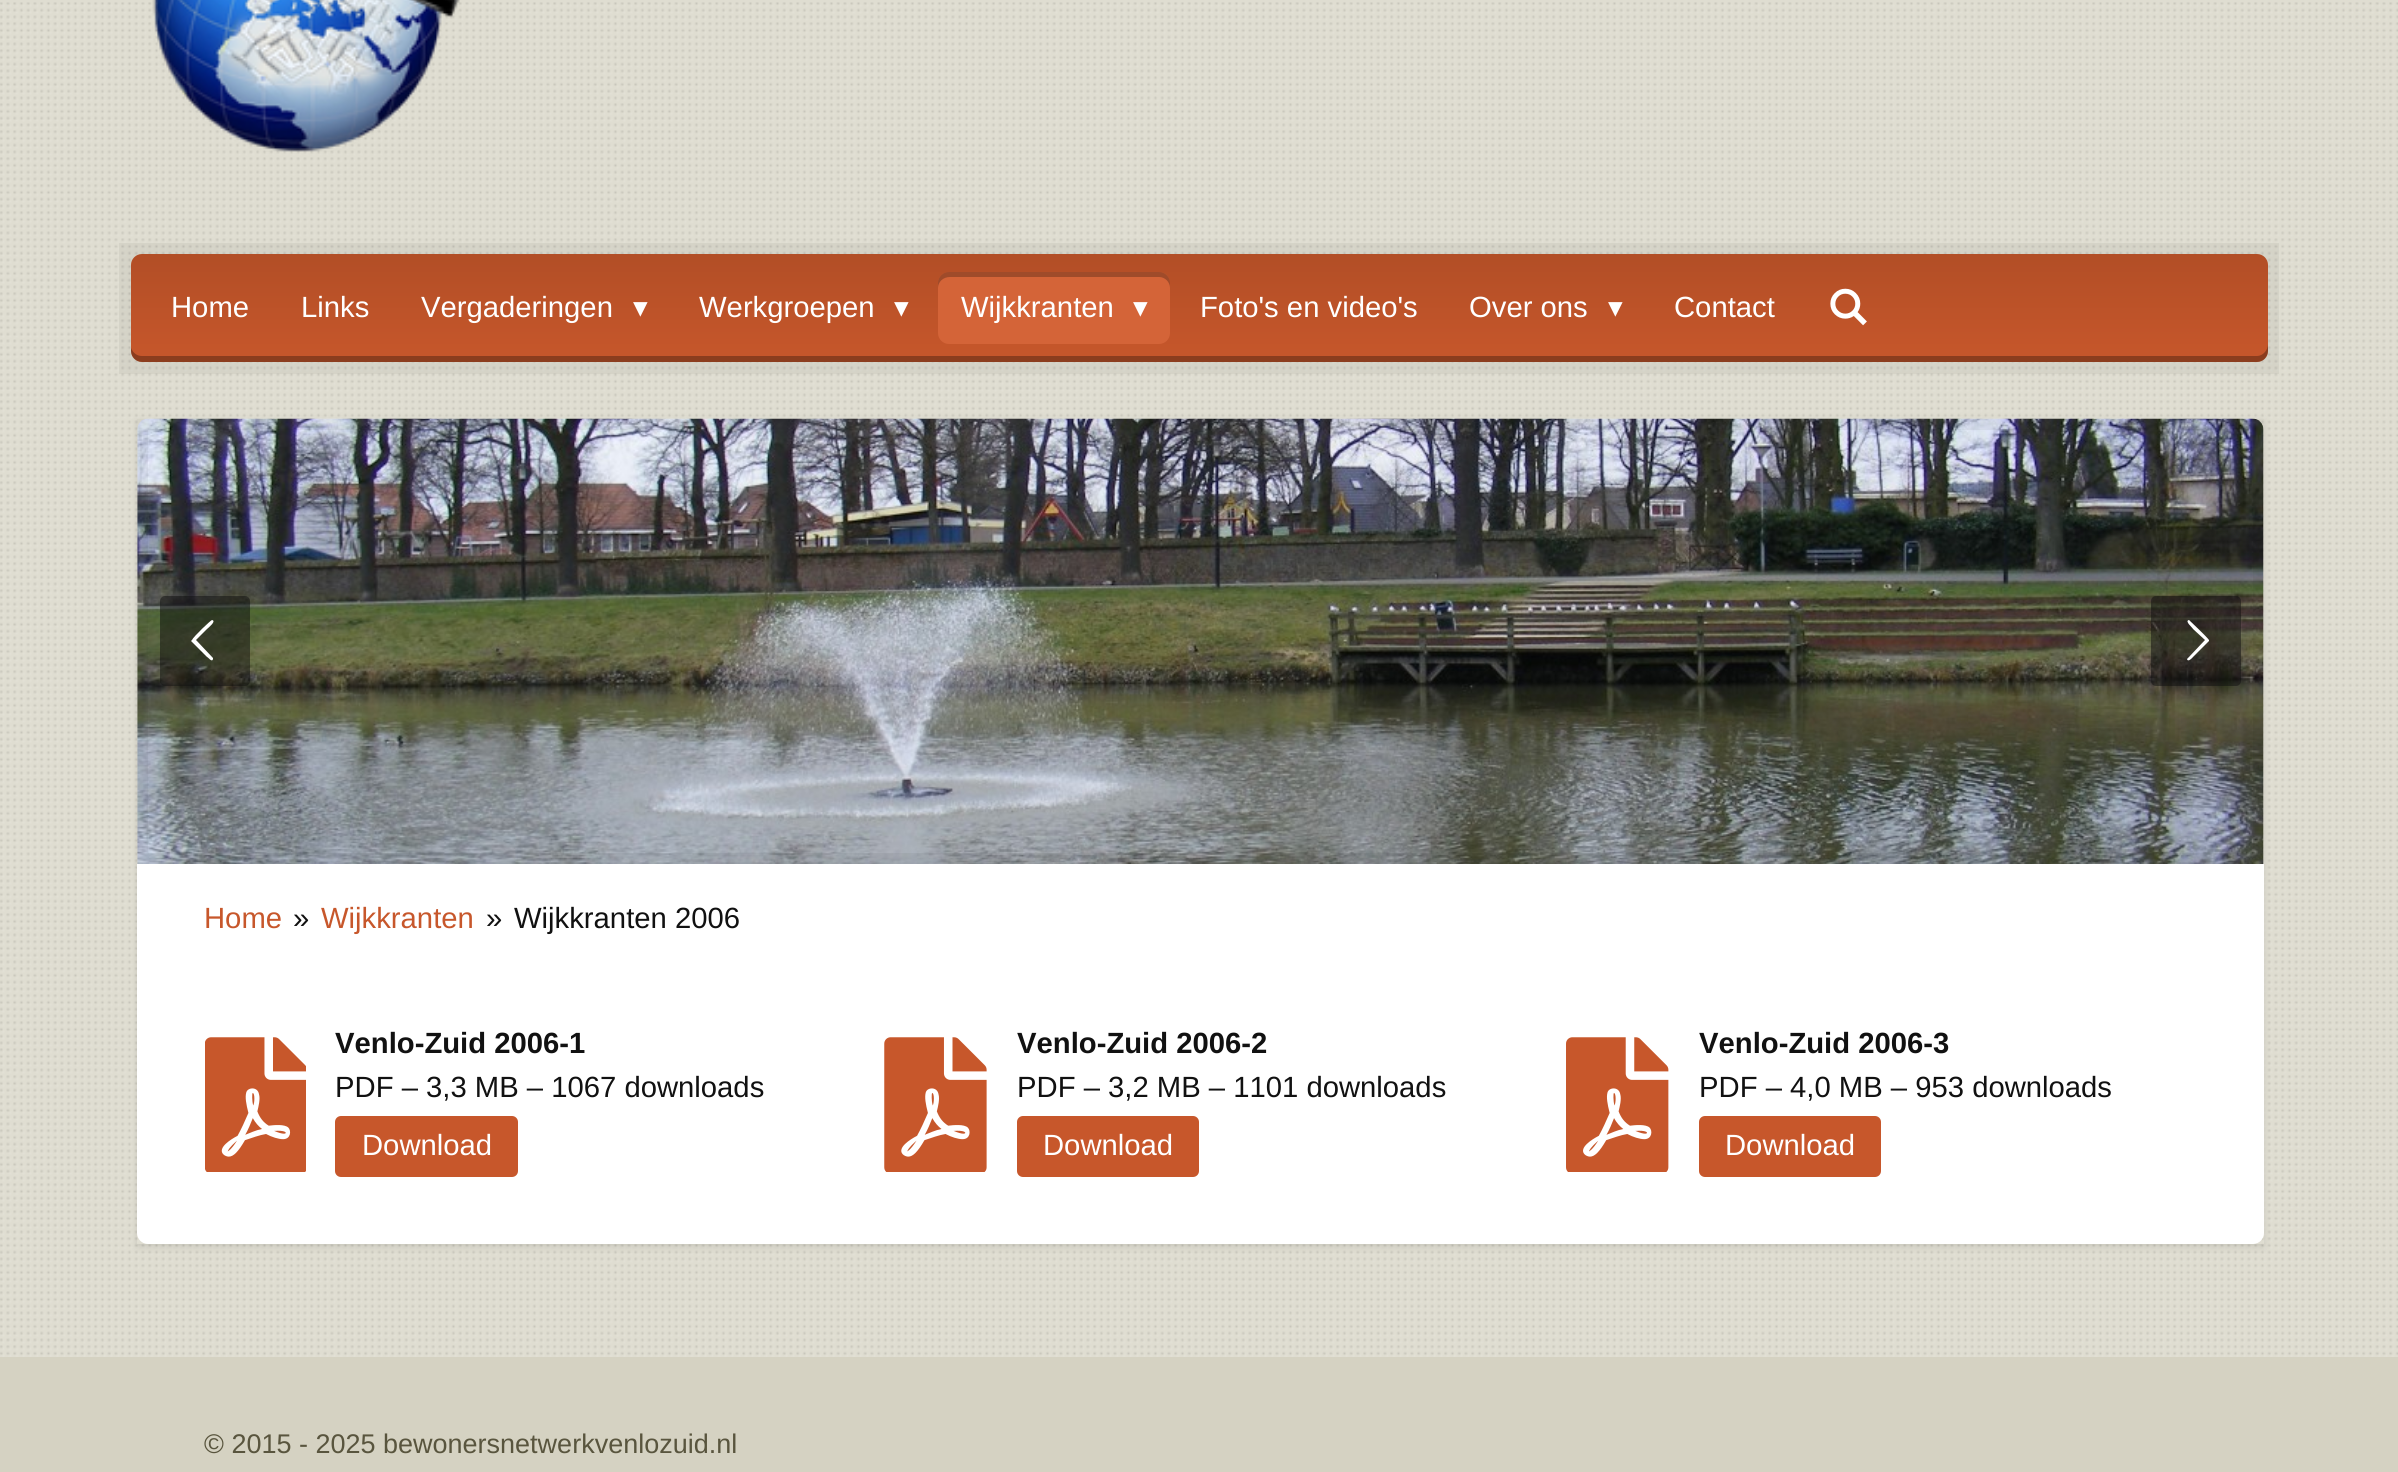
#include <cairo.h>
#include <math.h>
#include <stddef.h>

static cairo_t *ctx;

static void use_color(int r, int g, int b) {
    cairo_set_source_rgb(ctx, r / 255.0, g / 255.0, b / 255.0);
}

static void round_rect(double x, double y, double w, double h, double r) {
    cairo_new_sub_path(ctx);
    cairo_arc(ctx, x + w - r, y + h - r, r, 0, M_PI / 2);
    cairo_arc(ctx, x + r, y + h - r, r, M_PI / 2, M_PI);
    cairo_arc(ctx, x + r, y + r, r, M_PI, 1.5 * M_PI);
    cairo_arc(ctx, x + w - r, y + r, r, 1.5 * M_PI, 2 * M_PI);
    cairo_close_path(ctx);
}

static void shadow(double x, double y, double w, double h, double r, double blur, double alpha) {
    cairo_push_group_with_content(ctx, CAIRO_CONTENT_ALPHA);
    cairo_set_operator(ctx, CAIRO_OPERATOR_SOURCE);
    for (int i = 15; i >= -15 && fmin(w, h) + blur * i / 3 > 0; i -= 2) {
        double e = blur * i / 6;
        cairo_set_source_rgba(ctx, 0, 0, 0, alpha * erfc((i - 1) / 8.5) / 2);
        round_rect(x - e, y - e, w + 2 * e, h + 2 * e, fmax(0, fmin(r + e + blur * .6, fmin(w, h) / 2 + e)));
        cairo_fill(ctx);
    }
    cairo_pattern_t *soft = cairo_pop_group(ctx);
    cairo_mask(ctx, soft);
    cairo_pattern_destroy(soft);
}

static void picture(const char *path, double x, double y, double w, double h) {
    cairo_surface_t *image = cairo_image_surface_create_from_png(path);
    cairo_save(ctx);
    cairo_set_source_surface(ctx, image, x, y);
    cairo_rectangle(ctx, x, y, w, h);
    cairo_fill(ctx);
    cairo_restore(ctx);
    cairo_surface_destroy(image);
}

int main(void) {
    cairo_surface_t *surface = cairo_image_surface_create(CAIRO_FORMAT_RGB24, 2398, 1472);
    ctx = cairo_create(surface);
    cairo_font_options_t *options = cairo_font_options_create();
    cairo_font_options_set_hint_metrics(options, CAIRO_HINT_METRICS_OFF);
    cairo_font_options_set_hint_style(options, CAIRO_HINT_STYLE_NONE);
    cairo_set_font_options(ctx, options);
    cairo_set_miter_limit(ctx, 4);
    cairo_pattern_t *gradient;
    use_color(223, 221, 209);
    cairo_paint(ctx);
    picture("img1.png", 0, 2, 2398, 1355);
    picture("img2.png", 152, 0, 308, 152);
    cairo_set_source_rgba(ctx, 0, 0, 0, 0.05);
    cairo_rectangle(ctx, 119, 243, 2160, 131);
    cairo_fill(ctx);
    gradient = cairo_pattern_create_linear(1199, 254, 1199, 362);
    cairo_pattern_add_color_stop_rgba(gradient, 0, 0.698, 0.306, 0.149, 1);
    cairo_pattern_add_color_stop_rgba(gradient, 1, 0.78, 0.341, 0.169, 1);
    cairo_set_source(ctx, gradient);
    cairo_pattern_destroy(gradient);
    round_rect(131, 254, 2137, 108, 11);
    cairo_fill(ctx);
    cairo_set_source_rgba(ctx, 0, 0, 0, 0.3);
    cairo_new_path(ctx);
    cairo_move_to(ctx, 131, 348);
    cairo_line_to(ctx, 131, 351);
    cairo_curve_to(ctx, 131, 357, 136, 362, 142, 362);
    cairo_line_to(ctx, 2257, 362);
    cairo_curve_to(ctx, 2263, 362, 2268, 357, 2268, 351);
    cairo_line_to(ctx, 2268, 344);
    cairo_curve_to(ctx, 2268, 350, 2263, 356, 2257, 356);
    cairo_line_to(ctx, 142, 356);
    cairo_curve_to(ctx, 137, 356, 133, 353, 131, 348);
    cairo_close_path(ctx);
    cairo_fill(ctx);
    cairo_select_font_face(ctx, "Liberation Sans", CAIRO_FONT_SLANT_NORMAL, CAIRO_FONT_WEIGHT_NORMAL);
    cairo_set_font_size(ctx, 29.25);
    use_color(255, 255, 255);
    cairo_move_to(ctx, 171, 317);
    cairo_show_text(ctx, "Home");
    cairo_move_to(ctx, 301, 317);
    cairo_show_text(ctx, "Links");
    cairo_move_to(ctx, 421, 317);
    cairo_show_text(ctx, "Vergaderingen");
    cairo_select_font_face(ctx, "DejaVu Sans", CAIRO_FONT_SLANT_NORMAL, CAIRO_FONT_WEIGHT_NORMAL);
    cairo_move_to(ctx, 633, 317);
    cairo_show_text(ctx, "▾");
    cairo_select_font_face(ctx, "Liberation Sans", CAIRO_FONT_SLANT_NORMAL, CAIRO_FONT_WEIGHT_NORMAL);
    cairo_move_to(ctx, 699, 317);
    cairo_show_text(ctx, "Werkgroepen");
    cairo_select_font_face(ctx, "DejaVu Sans", CAIRO_FONT_SLANT_NORMAL, CAIRO_FONT_WEIGHT_NORMAL);
    cairo_move_to(ctx, 894, 317);
    cairo_show_text(ctx, "▾");
    use_color(212, 100, 56);
    round_rect(938, 272, 232, 72, 11);
    cairo_fill(ctx);
    cairo_set_source_rgba(ctx, 0, 0, 0, 0.25);
    cairo_new_path(ctx);
    cairo_move_to(ctx, 950, 277);
    cairo_line_to(ctx, 1159, 277);
    cairo_curve_to(ctx, 1165, 277, 1170, 282, 1170, 288);
    cairo_line_to(ctx, 1170, 283);
    cairo_curve_to(ctx, 1170, 277, 1165, 272, 1159, 272);
    cairo_line_to(ctx, 949, 272);
    cairo_curve_to(ctx, 943, 272, 938, 277, 938, 283);
    cairo_line_to(ctx, 938, 288);
    cairo_curve_to(ctx, 938, 282, 943, 277, 950, 277);
    cairo_close_path(ctx);
    cairo_fill(ctx);
    cairo_select_font_face(ctx, "Liberation Sans", CAIRO_FONT_SLANT_NORMAL, CAIRO_FONT_WEIGHT_NORMAL);
    use_color(255, 255, 255);
    cairo_move_to(ctx, 961, 317);
    cairo_show_text(ctx, "Wijkkranten");
    cairo_select_font_face(ctx, "DejaVu Sans", CAIRO_FONT_SLANT_NORMAL, CAIRO_FONT_WEIGHT_NORMAL);
    cairo_move_to(ctx, 1133, 317);
    cairo_show_text(ctx, "▾");
    cairo_select_font_face(ctx, "Liberation Sans", CAIRO_FONT_SLANT_NORMAL, CAIRO_FONT_WEIGHT_NORMAL);
    cairo_move_to(ctx, 1200, 317);
    cairo_show_text(ctx, "Foto's en video's");
    cairo_move_to(ctx, 1469, 317);
    cairo_show_text(ctx, "Over ons");
    cairo_select_font_face(ctx, "DejaVu Sans", CAIRO_FONT_SLANT_NORMAL, CAIRO_FONT_WEIGHT_NORMAL);
    cairo_move_to(ctx, 1608, 317);
    cairo_show_text(ctx, "▾");
    cairo_select_font_face(ctx, "Liberation Sans", CAIRO_FONT_SLANT_NORMAL, CAIRO_FONT_WEIGHT_NORMAL);
    cairo_move_to(ctx, 1674, 317);
    cairo_show_text(ctx, "Contact");
    picture("img3.png", 1830, 288, 37, 38);
    cairo_save(ctx);
    cairo_set_fill_rule(ctx, CAIRO_FILL_RULE_EVEN_ODD);
    cairo_new_path(ctx);
    cairo_move_to(ctx, 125, 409);
    cairo_line_to(ctx, 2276, 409);
    cairo_line_to(ctx, 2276, 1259);
    cairo_line_to(ctx, 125, 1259);
    cairo_close_path(ctx);
    cairo_move_to(ctx, 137, 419);
    cairo_line_to(ctx, 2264, 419);
    cairo_line_to(ctx, 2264, 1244);
    cairo_line_to(ctx, 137, 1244);
    cairo_close_path(ctx);
    cairo_clip(ctx);
    use_color(0, 0, 0);
    shadow(137, 421, 2127, 826, 0, 3.5, 0.1);
    cairo_restore(ctx);
    picture("img4.png", 137, 418, 2127, 446);
    cairo_rectangle(ctx, 142.5, 424.5, 2116, 434);
    cairo_set_source_rgba(ctx, 0, 0, 0, 0.05);
    cairo_set_line_width(ctx, 11);
    cairo_stroke(ctx);
    cairo_set_source_rgba(ctx, 0.059, 0.059, 0.059, 0.5);
    round_rect(160, 596, 90, 90, 5);
    cairo_fill(ctx);
    use_color(255, 255, 255);
    cairo_new_path(ctx);
    cairo_move_to(ctx, 213, 658);
    cairo_line_to(ctx, 213, 659);
    cairo_curve_to(ctx, 212, 663, 208, 657, 207, 657);
    cairo_line_to(ctx, 191, 641);
    cairo_line_to(ctx, 192, 640);
    cairo_curve_to(ctx, 193, 637, 211, 620, 212, 620);
    cairo_curve_to(ctx, 217, 621, 208, 628, 207, 629);
    cairo_line_to(ctx, 196, 640);
    cairo_close_path(ctx);
    cairo_fill(ctx);
    cairo_set_source_rgba(ctx, 0.059, 0.059, 0.059, 0.5);
    round_rect(2151, 596, 90, 90, 5);
    cairo_fill(ctx);
    use_color(255, 255, 255);
    cairo_new_path(ctx);
    cairo_move_to(ctx, 2188, 658);
    cairo_line_to(ctx, 2205, 640);
    cairo_line_to(ctx, 2193, 629);
    cairo_curve_to(ctx, 2193, 628, 2184, 621, 2189, 620);
    cairo_curve_to(ctx, 2189, 620, 2207, 637, 2209, 640);
    cairo_line_to(ctx, 2209, 641);
    cairo_line_to(ctx, 2193, 657);
    cairo_curve_to(ctx, 2193, 657, 2188, 663, 2187, 659);
    cairo_close_path(ctx);
    cairo_fill(ctx);
    cairo_new_path(ctx);
    cairo_move_to(ctx, 137, 864);
    cairo_line_to(ctx, 2264, 864);
    cairo_line_to(ctx, 2264, 1233);
    cairo_curve_to(ctx, 2264, 1239, 2259, 1244, 2253, 1244);
    cairo_line_to(ctx, 148, 1244);
    cairo_curve_to(ctx, 142, 1244, 137, 1239, 137, 1233);
    cairo_close_path(ctx);
    cairo_fill(ctx);
    use_color(199, 87, 43);
    cairo_move_to(ctx, 204, 928);
    cairo_show_text(ctx, "Home");
    use_color(17, 17, 17);
    cairo_move_to(ctx, 293, 928);
    cairo_show_text(ctx, "»");
    use_color(199, 87, 43);
    cairo_move_to(ctx, 321, 928);
    cairo_show_text(ctx, "Wijkkranten");
    use_color(17, 17, 17);
    cairo_move_to(ctx, 486, 928);
    cairo_show_text(ctx, "»");
    cairo_move_to(ctx, 514, 928);
    cairo_show_text(ctx, "Wijkkranten 2006");
    picture("img5.png", 205, 1037, 101, 135);
    cairo_select_font_face(ctx, "Liberation Sans", CAIRO_FONT_SLANT_NORMAL, CAIRO_FONT_WEIGHT_BOLD);
    cairo_move_to(ctx, 335, 1053);
    cairo_show_text(ctx, "Venlo-Zuid 2006-1");
    cairo_select_font_face(ctx, "Liberation Sans", CAIRO_FONT_SLANT_NORMAL, CAIRO_FONT_WEIGHT_NORMAL);
    cairo_move_to(ctx, 335, 1097);
    cairo_show_text(ctx, "PDF – 3,3 MB – 1067 downloads");
    use_color(199, 87, 43);
    round_rect(335, 1116, 183, 61, 6);
    cairo_fill(ctx);
    use_color(255, 255, 255);
    cairo_move_to(ctx, 362, 1155);
    cairo_show_text(ctx, "Download");
    picture("img6.png", 884, 1037, 103, 135);
    cairo_select_font_face(ctx, "Liberation Sans", CAIRO_FONT_SLANT_NORMAL, CAIRO_FONT_WEIGHT_BOLD);
    use_color(17, 17, 17);
    cairo_move_to(ctx, 1017, 1053);
    cairo_show_text(ctx, "Venlo-Zuid 2006-2");
    cairo_select_font_face(ctx, "Liberation Sans", CAIRO_FONT_SLANT_NORMAL, CAIRO_FONT_WEIGHT_NORMAL);
    cairo_move_to(ctx, 1017, 1097);
    cairo_show_text(ctx, "PDF – 3,2 MB – 1101 downloads");
    use_color(199, 87, 43);
    round_rect(1017, 1116, 182, 61, 6);
    cairo_fill(ctx);
    use_color(255, 255, 255);
    cairo_move_to(ctx, 1043, 1155);
    cairo_show_text(ctx, "Download");
    picture("img7.png", 1566, 1037, 103, 135);
    cairo_select_font_face(ctx, "Liberation Sans", CAIRO_FONT_SLANT_NORMAL, CAIRO_FONT_WEIGHT_BOLD);
    use_color(17, 17, 17);
    cairo_move_to(ctx, 1699, 1053);
    cairo_show_text(ctx, "Venlo-Zuid 2006-3");
    cairo_select_font_face(ctx, "Liberation Sans", CAIRO_FONT_SLANT_NORMAL, CAIRO_FONT_WEIGHT_NORMAL);
    cairo_move_to(ctx, 1699, 1097);
    cairo_show_text(ctx, "PDF – 4,0 MB – 953 downloads");
    use_color(199, 87, 43);
    round_rect(1699, 1116, 182, 61, 6);
    cairo_fill(ctx);
    use_color(255, 255, 255);
    cairo_move_to(ctx, 1725, 1155);
    cairo_show_text(ctx, "Download");
    use_color(213, 210, 194);
    cairo_rectangle(ctx, 0, 1357, 2398, 115);
    cairo_fill(ctx);
    cairo_set_font_size(ctx, 27);
    use_color(89, 85, 62);
    cairo_move_to(ctx, 204, 1453);
    cairo_show_text(ctx, "© 2015 - 2025 bewonersnetwerkvenlozuid.nl");
    cairo_surface_write_to_png(surface, "result.png");
    cairo_font_options_destroy(options);
    cairo_destroy(ctx);
    cairo_surface_destroy(surface);
    return 0;
}
